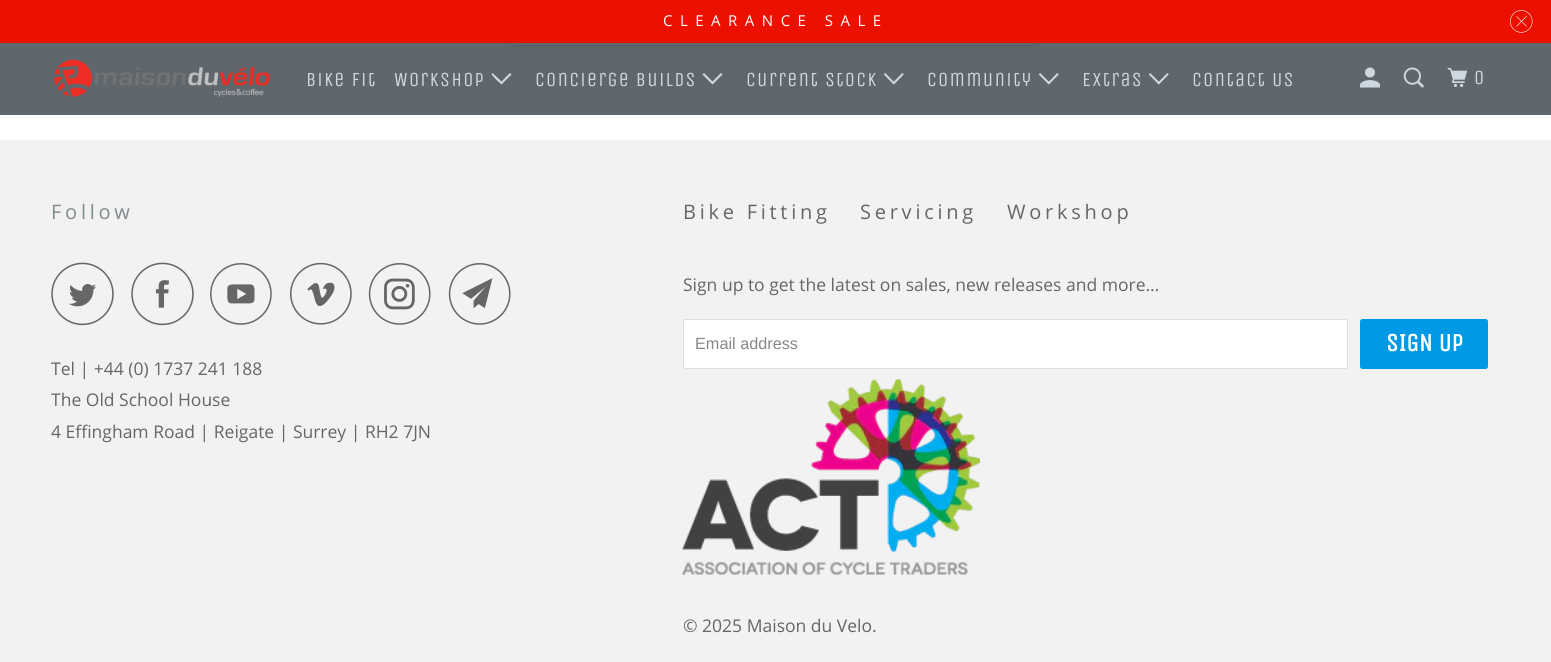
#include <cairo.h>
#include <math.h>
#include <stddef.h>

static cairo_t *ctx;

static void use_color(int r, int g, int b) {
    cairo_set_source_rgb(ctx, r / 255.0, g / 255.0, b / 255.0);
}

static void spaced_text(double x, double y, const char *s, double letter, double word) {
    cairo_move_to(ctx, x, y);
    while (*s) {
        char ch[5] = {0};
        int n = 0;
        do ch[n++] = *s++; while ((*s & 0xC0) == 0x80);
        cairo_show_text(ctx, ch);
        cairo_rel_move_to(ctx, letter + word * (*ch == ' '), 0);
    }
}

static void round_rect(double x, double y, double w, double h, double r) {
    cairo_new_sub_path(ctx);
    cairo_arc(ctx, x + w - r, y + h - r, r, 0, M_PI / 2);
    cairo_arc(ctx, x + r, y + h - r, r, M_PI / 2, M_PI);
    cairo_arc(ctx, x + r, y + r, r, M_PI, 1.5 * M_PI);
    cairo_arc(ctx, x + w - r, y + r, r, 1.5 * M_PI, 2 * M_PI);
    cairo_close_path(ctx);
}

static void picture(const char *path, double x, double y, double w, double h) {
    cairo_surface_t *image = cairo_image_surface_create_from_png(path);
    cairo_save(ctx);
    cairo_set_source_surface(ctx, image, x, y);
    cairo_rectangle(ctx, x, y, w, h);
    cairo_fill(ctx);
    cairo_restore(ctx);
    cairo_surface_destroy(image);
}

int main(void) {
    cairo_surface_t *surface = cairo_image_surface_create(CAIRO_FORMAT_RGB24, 1551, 662);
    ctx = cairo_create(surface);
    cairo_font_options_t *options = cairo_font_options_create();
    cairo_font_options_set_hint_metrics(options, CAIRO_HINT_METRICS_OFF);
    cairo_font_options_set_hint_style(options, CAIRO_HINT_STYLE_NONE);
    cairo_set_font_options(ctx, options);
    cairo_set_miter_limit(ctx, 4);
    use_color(255, 255, 255);
    cairo_paint(ctx);
    round_rect(511.5, -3.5, 528, 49, 2);
    use_color(223, 223, 223);
    cairo_set_line_width(ctx, 1);
    cairo_stroke(ctx);
    use_color(235, 16, 0);
    cairo_rectangle(ctx, 0, 0, 1551, 43);
    cairo_fill(ctx);
    cairo_select_font_face(ctx, "Open Sans", CAIRO_FONT_SLANT_NORMAL, CAIRO_FONT_WEIGHT_NORMAL);
    cairo_set_font_size(ctx, 15);
    use_color(255, 255, 255);
    spaced_text(663, 26, "CLEARANCE SALE", 7.5, 0);
    picture("img1.png", 1510, 10, 23, 23);
    cairo_set_source_rgba(ctx, 0.11, 0.149, 0.184, 0.7);
    cairo_rectangle(ctx, 0, 43, 1551, 72);
    cairo_fill(ctx);
    picture("img2.png", 54, 59, 216, 38);
    cairo_select_font_face(ctx, "Unica One", CAIRO_FONT_SLANT_NORMAL, CAIRO_FONT_WEIGHT_NORMAL);
    cairo_set_font_size(ctx, 20);
    use_color(206, 216, 224);
    spaced_text(306, 86, "Bike Fit", 1.25, 0);
    spaced_text(394, 86, "Workshop", 1.25, 0);
    cairo_new_path(ctx);
    cairo_move_to(ctx, 496, 79.5);
    cairo_line_to(ctx, 491.5, 74.5);
    cairo_line_to(ctx, 492.5, 73);
    cairo_line_to(ctx, 501.5, 81.5);
    cairo_line_to(ctx, 510, 73);
    cairo_line_to(ctx, 511.5, 74.5);
    cairo_line_to(ctx, 501.5, 84.5);
    cairo_close_path(ctx);
    cairo_fill(ctx);
    spaced_text(535, 86, "Concierge Builds", 1.25, 0);
    cairo_new_path(ctx);
    cairo_move_to(ctx, 707.5, 79.5);
    cairo_line_to(ctx, 702.5, 74.5);
    cairo_line_to(ctx, 704, 73);
    cairo_line_to(ctx, 712.5, 81.5);
    cairo_line_to(ctx, 721, 73);
    cairo_line_to(ctx, 722.5, 74.5);
    cairo_line_to(ctx, 712.5, 84.5);
    cairo_close_path(ctx);
    cairo_fill(ctx);
    spaced_text(746, 86, "Current Stock", 1.25, 0);
    picture("img3.png", 883, 73, 21, 12);
    spaced_text(927, 86, "Community", 1.25, 0);
    picture("img3.png", 1038, 73, 21, 12);
    spaced_text(1082, 86, "Extras", 1.25, 0);
    picture("img3.png", 1148, 73, 21, 12);
    spaced_text(1192, 86, "Contact Us", 1.25, 0);
    picture("img4.png", 1360, 67, 20, 21);
    picture("img5.png", 1403, 67, 21, 21);
    picture("img6.png", 1447, 67, 20, 20);
    spaced_text(1474, 84, "0", 1.25, 0);
    use_color(242, 242, 242);
    cairo_rectangle(ctx, 0, 140, 1551, 522);
    cairo_fill(ctx);
    cairo_select_font_face(ctx, "Open Sans", CAIRO_FONT_SLANT_NORMAL, CAIRO_FONT_WEIGHT_NORMAL);
    use_color(127, 140, 141);
    spaced_text(51, 219, "Follow", 3.75, 0);
    picture("img7.png", 51, 262, 63, 64);
    picture("img8.png", 131, 262, 63, 64);
    picture("img9.png", 210, 263, 62, 62);
    picture("img10.png", 290, 262, 62, 63);
    picture("img11.png", 368, 263, 63, 62);
    picture("img12.png", 448, 263, 63, 62);
    cairo_set_font_size(ctx, 17.5);
    use_color(102, 102, 102);
    cairo_move_to(ctx, 51, 375);
    cairo_show_text(ctx, "Tel | +44 (0) 1737 241 188");
    cairo_move_to(ctx, 51, 406);
    cairo_show_text(ctx, "The Old School House");
    cairo_move_to(ctx, 51, 438);
    cairo_show_text(ctx, "4 Effingham Road | Reigate | Surrey | RH2 7JN");
    cairo_set_font_size(ctx, 20);
    spaced_text(683, 219, "Bike Fitting", 3.75, 0);
    spaced_text(860, 219, "Servicing", 3.75, 0);
    spaced_text(1007, 219, "Workshop", 3.75, 0);
    cairo_set_font_size(ctx, 17.5);
    cairo_move_to(ctx, 683, 291);
    cairo_show_text(ctx, "Sign up to get the latest on sales, new releases and more…");
    use_color(255, 255, 255);
    round_rect(683.5, 319.5, 664, 49, 2);
    cairo_fill_preserve(ctx);
    use_color(223, 223, 223);
    cairo_stroke(ctx);
    cairo_select_font_face(ctx, "Liberation Sans", CAIRO_FONT_SLANT_NORMAL, CAIRO_FONT_WEIGHT_NORMAL);
    cairo_set_font_size(ctx, 16.25);
    use_color(136, 136, 136);
    cairo_move_to(ctx, 695, 349);
    cairo_show_text(ctx, "Email address");
    use_color(0, 153, 229);
    round_rect(1360, 319, 128, 50, 2.5);
    cairo_fill(ctx);
    cairo_select_font_face(ctx, "Unica One", CAIRO_FONT_SLANT_NORMAL, CAIRO_FONT_WEIGHT_BOLD);
    cairo_set_font_size(ctx, 25);
    use_color(255, 255, 255);
    cairo_move_to(ctx, 1386, 351);
    cairo_show_text(ctx, "SIGN UP");
    picture("img13.png", 682, 379, 298, 196);
    cairo_select_font_face(ctx, "Open Sans", CAIRO_FONT_SLANT_NORMAL, CAIRO_FONT_WEIGHT_NORMAL);
    cairo_set_font_size(ctx, 17.5);
    use_color(102, 102, 102);
    cairo_move_to(ctx, 683, 632);
    cairo_show_text(ctx, "© 2025 Maison du Velo.");
    cairo_surface_write_to_png(surface, "result.png");
    cairo_font_options_destroy(options);
    cairo_destroy(ctx);
    cairo_surface_destroy(surface);
    return 0;
}
